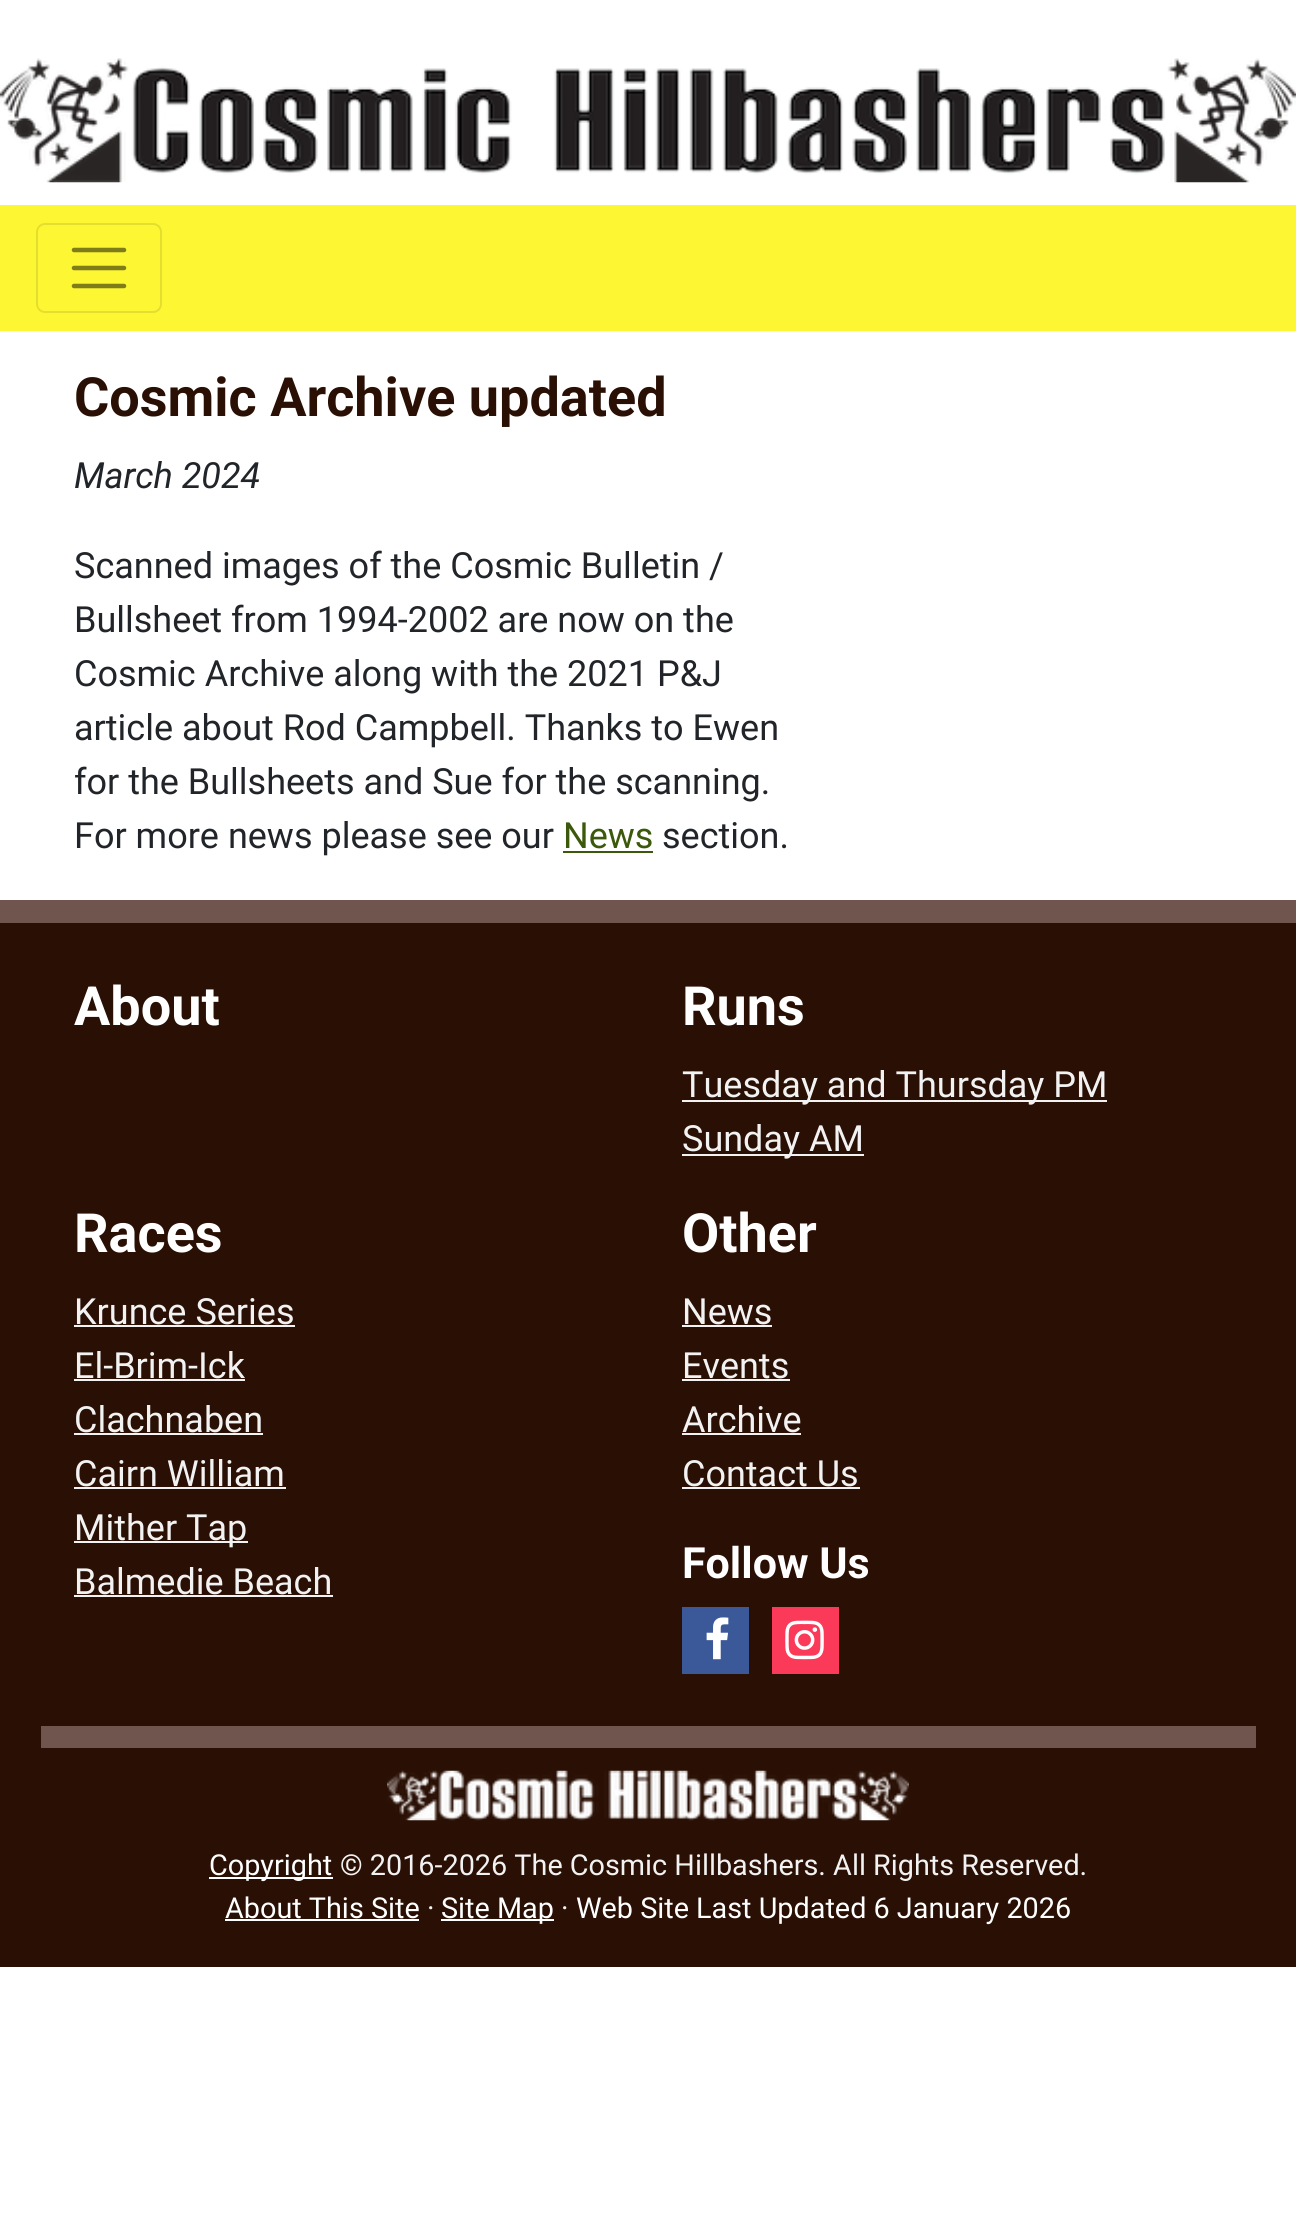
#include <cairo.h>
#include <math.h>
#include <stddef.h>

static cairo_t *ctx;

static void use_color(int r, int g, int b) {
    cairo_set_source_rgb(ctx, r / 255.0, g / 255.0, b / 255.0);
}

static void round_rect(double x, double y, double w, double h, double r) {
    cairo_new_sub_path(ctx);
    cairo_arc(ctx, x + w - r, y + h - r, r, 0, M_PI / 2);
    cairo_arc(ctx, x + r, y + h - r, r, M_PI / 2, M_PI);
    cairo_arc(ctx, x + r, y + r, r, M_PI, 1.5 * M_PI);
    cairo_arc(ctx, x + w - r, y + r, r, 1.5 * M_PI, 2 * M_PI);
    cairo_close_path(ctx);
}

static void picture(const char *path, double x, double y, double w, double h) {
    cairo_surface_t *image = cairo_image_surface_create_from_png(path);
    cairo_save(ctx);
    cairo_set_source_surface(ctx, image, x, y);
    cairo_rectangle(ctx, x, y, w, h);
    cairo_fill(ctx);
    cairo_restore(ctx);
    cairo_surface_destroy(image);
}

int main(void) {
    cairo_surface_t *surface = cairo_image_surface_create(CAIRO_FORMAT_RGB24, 1296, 2223);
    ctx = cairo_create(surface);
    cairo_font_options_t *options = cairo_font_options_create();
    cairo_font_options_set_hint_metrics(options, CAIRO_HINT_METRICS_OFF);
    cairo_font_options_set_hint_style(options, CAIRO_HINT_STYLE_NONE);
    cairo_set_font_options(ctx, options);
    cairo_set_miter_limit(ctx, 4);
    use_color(255, 255, 255);
    cairo_paint(ctx);
    picture("img1.png", 0, 58, 1296, 125);
    use_color(253, 247, 51);
    cairo_rectangle(ctx, 0, 205, 1296, 126);
    cairo_fill(ctx);
    round_rect(37, 224, 124, 88, 8);
    use_color(228, 222, 46);
    cairo_stroke(ctx);
    cairo_new_path(ctx);
    cairo_move_to(ctx, 74, 250);
    cairo_line_to(ctx, 124, 250);
    cairo_move_to(ctx, 74, 268);
    cairo_line_to(ctx, 124, 268);
    cairo_move_to(ctx, 74, 286);
    cairo_line_to(ctx, 124, 286);
    use_color(127, 124, 26);
    cairo_set_line_width(ctx, 4.5);
    cairo_set_line_cap(ctx, CAIRO_LINE_CAP_ROUND);
    cairo_stroke(ctx);
    cairo_select_font_face(ctx, "Roboto", CAIRO_FONT_SLANT_NORMAL, CAIRO_FONT_WEIGHT_BOLD);
    cairo_set_font_size(ctx, 54);
    use_color(41, 15, 4);
    cairo_move_to(ctx, 74, 416);
    cairo_show_text(ctx, "Cosmic Archive updated");
    cairo_select_font_face(ctx, "Roboto", CAIRO_FONT_SLANT_ITALIC, CAIRO_FONT_WEIGHT_NORMAL);
    cairo_set_font_size(ctx, 36);
    use_color(33, 37, 41);
    cairo_move_to(ctx, 74, 488);
    cairo_show_text(ctx, "March 2024");
    cairo_select_font_face(ctx, "Roboto", CAIRO_FONT_SLANT_NORMAL, CAIRO_FONT_WEIGHT_NORMAL);
    cairo_move_to(ctx, 74, 578);
    cairo_show_text(ctx, "Scanned images of the Cosmic Bulletin /");
    cairo_move_to(ctx, 74, 632);
    cairo_show_text(ctx, "Bullsheet from 1994-2002 are now on the");
    cairo_move_to(ctx, 74, 686);
    cairo_show_text(ctx, "Cosmic Archive along with the 2021 P&J");
    cairo_move_to(ctx, 74, 740);
    cairo_show_text(ctx, "article about Rod Campbell. Thanks to Ewen");
    cairo_move_to(ctx, 74, 794);
    cairo_show_text(ctx, "for the Bullsheets and Sue for the scanning.");
    cairo_move_to(ctx, 74, 848);
    cairo_show_text(ctx, "For more news please see our");
    use_color(60, 88, 10);
    cairo_move_to(ctx, 563, 848);
    cairo_show_text(ctx, "News");
    cairo_rectangle(ctx, 563, 851, 90, 2);
    cairo_fill(ctx);
    use_color(33, 37, 41);
    cairo_move_to(ctx, 662, 848);
    cairo_show_text(ctx, "section.");
    use_color(41, 15, 4);
    cairo_rectangle(ctx, 0, 923, 1296, 1044);
    cairo_fill(ctx);
    use_color(112, 85, 78);
    cairo_rectangle(ctx, 0, 900, 1296, 23);
    cairo_fill(ctx);
    cairo_select_font_face(ctx, "Roboto", CAIRO_FONT_SLANT_NORMAL, CAIRO_FONT_WEIGHT_BOLD);
    cairo_set_font_size(ctx, 54);
    use_color(255, 255, 255);
    cairo_move_to(ctx, 74, 1025);
    cairo_show_text(ctx, "About");
    cairo_move_to(ctx, 682, 1025);
    cairo_show_text(ctx, "Runs");
    use_color(242, 242, 242);
    cairo_rectangle(ctx, 682, 1100, 425, 2);
    cairo_fill(ctx);
    cairo_select_font_face(ctx, "Roboto", CAIRO_FONT_SLANT_NORMAL, CAIRO_FONT_WEIGHT_NORMAL);
    cairo_set_font_size(ctx, 36);
    cairo_move_to(ctx, 682, 1097);
    cairo_show_text(ctx, "Tuesday and Thursday PM");
    cairo_rectangle(ctx, 682, 1154, 182, 2);
    cairo_fill(ctx);
    cairo_move_to(ctx, 682, 1151);
    cairo_show_text(ctx, "Sunday AM");
    cairo_select_font_face(ctx, "Roboto", CAIRO_FONT_SLANT_NORMAL, CAIRO_FONT_WEIGHT_BOLD);
    cairo_set_font_size(ctx, 54);
    use_color(255, 255, 255);
    cairo_move_to(ctx, 74, 1252);
    cairo_show_text(ctx, "Races");
    cairo_select_font_face(ctx, "Roboto", CAIRO_FONT_SLANT_NORMAL, CAIRO_FONT_WEIGHT_NORMAL);
    cairo_set_font_size(ctx, 36);
    use_color(242, 242, 242);
    cairo_move_to(ctx, 74, 1324);
    cairo_show_text(ctx, "Krunce Series");
    cairo_rectangle(ctx, 74, 1325, 221, 2);
    cairo_fill(ctx);
    cairo_move_to(ctx, 74, 1378);
    cairo_show_text(ctx, "El-Brim-Ick");
    cairo_rectangle(ctx, 74, 1379, 171, 2);
    cairo_fill(ctx);
    cairo_move_to(ctx, 74, 1432);
    cairo_show_text(ctx, "Clachnaben");
    cairo_rectangle(ctx, 74, 1433, 189, 2);
    cairo_fill(ctx);
    cairo_move_to(ctx, 74, 1486);
    cairo_show_text(ctx, "Cairn William");
    cairo_rectangle(ctx, 74, 1487, 212, 2);
    cairo_fill(ctx);
    cairo_rectangle(ctx, 74, 1541, 174, 2);
    cairo_fill(ctx);
    cairo_move_to(ctx, 74, 1540);
    cairo_show_text(ctx, "Mither Tap");
    cairo_move_to(ctx, 74, 1594);
    cairo_show_text(ctx, "Balmedie Beach");
    cairo_rectangle(ctx, 74, 1595, 259, 2);
    cairo_fill(ctx);
    cairo_select_font_face(ctx, "Roboto", CAIRO_FONT_SLANT_NORMAL, CAIRO_FONT_WEIGHT_BOLD);
    cairo_set_font_size(ctx, 54);
    use_color(255, 255, 255);
    cairo_move_to(ctx, 682, 1252);
    cairo_show_text(ctx, "Other");
    cairo_select_font_face(ctx, "Roboto", CAIRO_FONT_SLANT_NORMAL, CAIRO_FONT_WEIGHT_NORMAL);
    cairo_set_font_size(ctx, 36);
    use_color(242, 242, 242);
    cairo_move_to(ctx, 682, 1324);
    cairo_show_text(ctx, "News");
    cairo_rectangle(ctx, 682, 1325, 90, 2);
    cairo_fill(ctx);
    cairo_move_to(ctx, 682, 1378);
    cairo_show_text(ctx, "Events");
    cairo_rectangle(ctx, 682, 1379, 108, 2);
    cairo_fill(ctx);
    cairo_move_to(ctx, 682, 1432);
    cairo_show_text(ctx, "Archive");
    cairo_rectangle(ctx, 682, 1433, 119, 2);
    cairo_fill(ctx);
    cairo_move_to(ctx, 682, 1486);
    cairo_show_text(ctx, "Contact Us");
    cairo_rectangle(ctx, 682, 1487, 178, 2);
    cairo_fill(ctx);
    cairo_select_font_face(ctx, "Roboto", CAIRO_FONT_SLANT_NORMAL, CAIRO_FONT_WEIGHT_BOLD);
    cairo_set_font_size(ctx, 43);
    use_color(255, 255, 255);
    cairo_move_to(ctx, 682, 1578);
    cairo_show_text(ctx, "Follow Us");
    use_color(59, 89, 152);
    cairo_rectangle(ctx, 682, 1607, 67, 67);
    cairo_fill(ctx);
    picture("img2.png", 706, 1617, 23, 43);
    use_color(251, 57, 88);
    cairo_rectangle(ctx, 772, 1607, 67, 67);
    cairo_fill(ctx);
    picture("img3.png", 785, 1620, 39, 40);
    use_color(112, 85, 78);
    cairo_rectangle(ctx, 41, 1726, 1215, 22);
    cairo_fill(ctx);
    picture("img4.png", 387, 1770, 522, 51);
    use_color(255, 255, 255);
    cairo_rectangle(ctx, 209, 1877, 124, 2);
    cairo_fill(ctx);
    cairo_select_font_face(ctx, "Roboto", CAIRO_FONT_SLANT_NORMAL, CAIRO_FONT_WEIGHT_NORMAL);
    cairo_set_font_size(ctx, 28.8);
    cairo_move_to(ctx, 209, 1875);
    cairo_show_text(ctx, "Copyright");
    use_color(242, 242, 242);
    cairo_move_to(ctx, 340, 1875);
    cairo_show_text(ctx, "© 2016-2026 The Cosmic Hillbashers. All Rights Reserved.");
    use_color(255, 255, 255);
    cairo_move_to(ctx, 225, 1918);
    cairo_show_text(ctx, "About This Site");
    cairo_rectangle(ctx, 225, 1919, 194, 2);
    cairo_fill(ctx);
    use_color(242, 242, 242);
    cairo_move_to(ctx, 427, 1918);
    cairo_show_text(ctx, "·");
    use_color(255, 255, 255);
    cairo_rectangle(ctx, 441, 1919, 113, 2);
    cairo_fill(ctx);
    cairo_move_to(ctx, 441, 1918);
    cairo_show_text(ctx, "Site Map");
    use_color(242, 242, 242);
    cairo_move_to(ctx, 561, 1918);
    cairo_show_text(ctx, "·");
    use_color(255, 255, 255);
    cairo_move_to(ctx, 576, 1918);
    cairo_show_text(ctx, "Web Site Last Updated 6 January 2026");
    cairo_surface_write_to_png(surface, "result.png");
    cairo_font_options_destroy(options);
    cairo_destroy(ctx);
    cairo_surface_destroy(surface);
    return 0;
}
